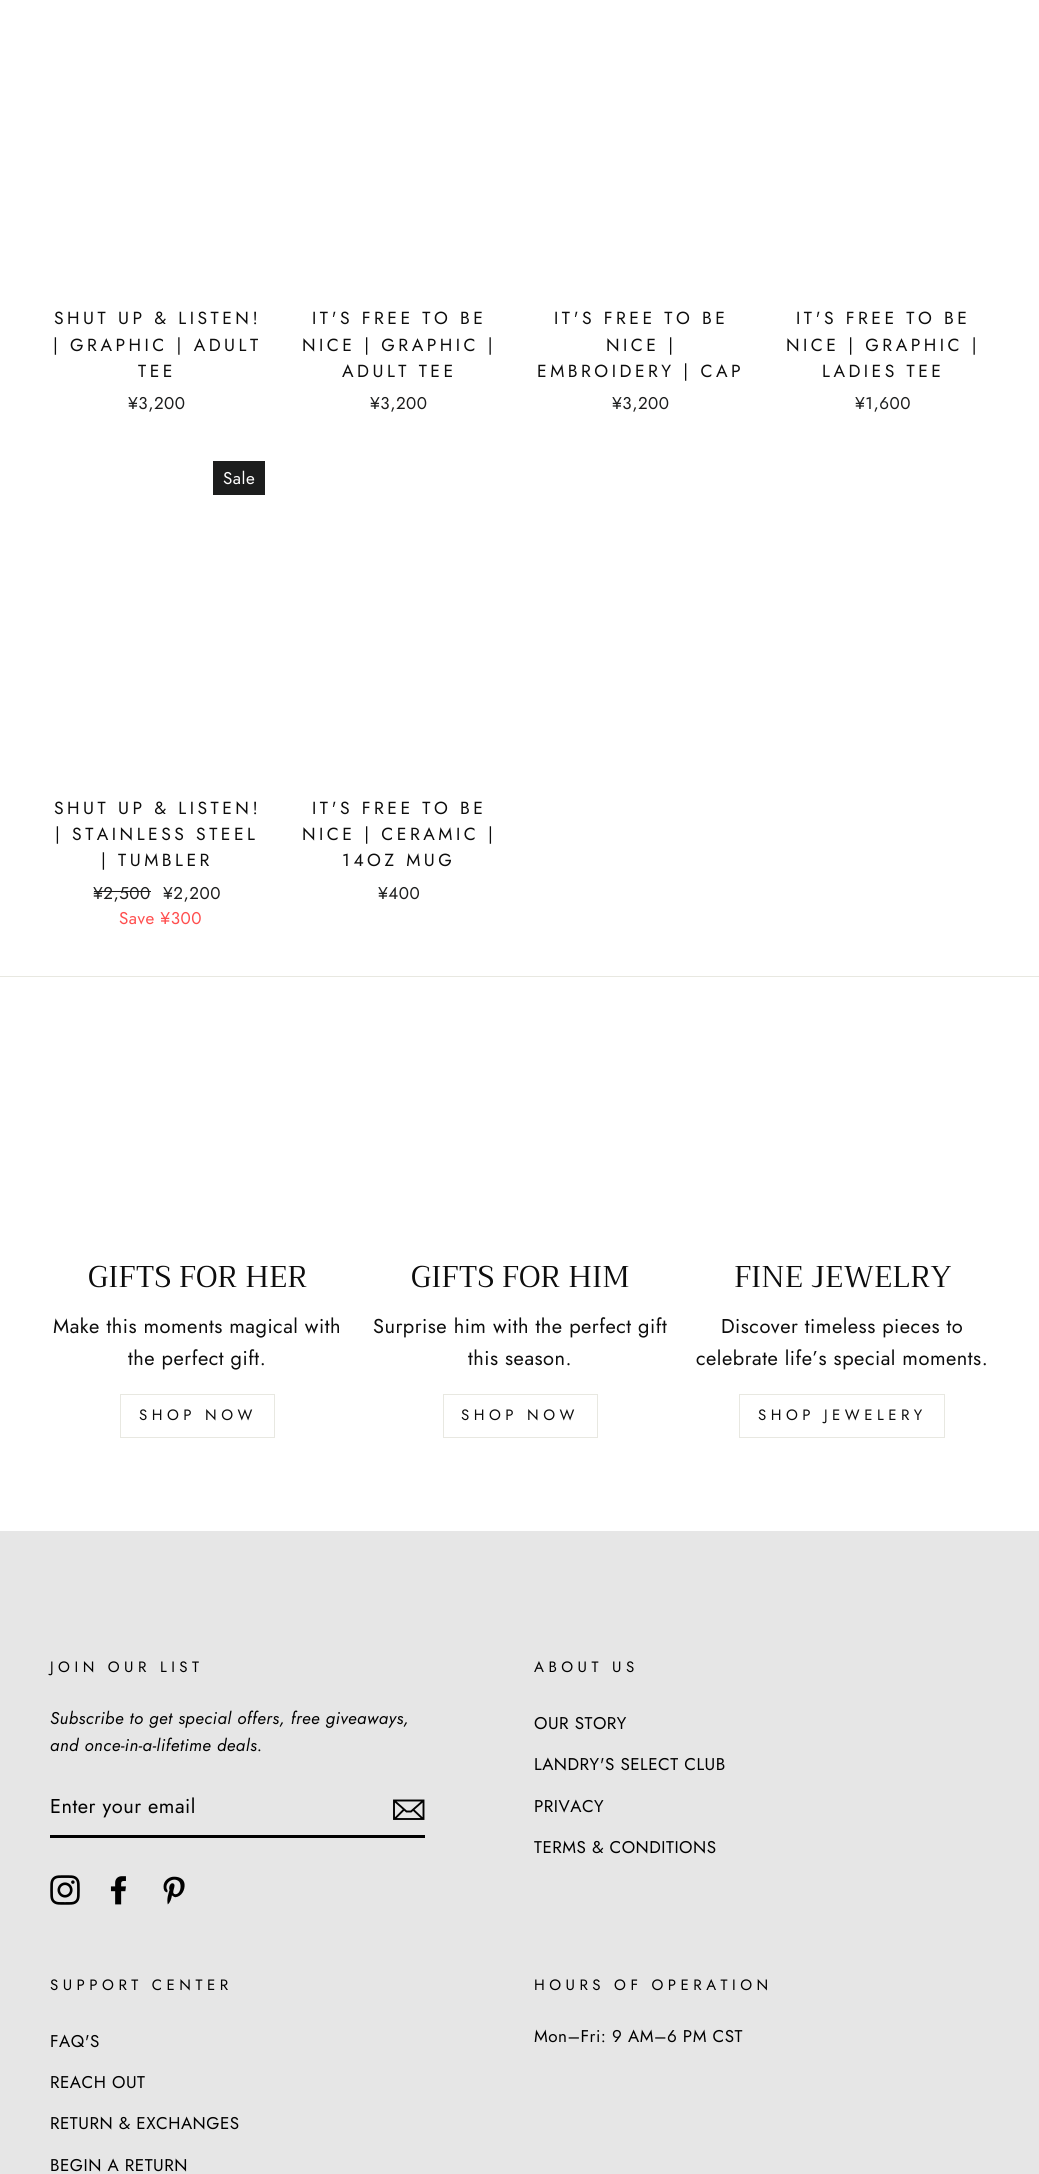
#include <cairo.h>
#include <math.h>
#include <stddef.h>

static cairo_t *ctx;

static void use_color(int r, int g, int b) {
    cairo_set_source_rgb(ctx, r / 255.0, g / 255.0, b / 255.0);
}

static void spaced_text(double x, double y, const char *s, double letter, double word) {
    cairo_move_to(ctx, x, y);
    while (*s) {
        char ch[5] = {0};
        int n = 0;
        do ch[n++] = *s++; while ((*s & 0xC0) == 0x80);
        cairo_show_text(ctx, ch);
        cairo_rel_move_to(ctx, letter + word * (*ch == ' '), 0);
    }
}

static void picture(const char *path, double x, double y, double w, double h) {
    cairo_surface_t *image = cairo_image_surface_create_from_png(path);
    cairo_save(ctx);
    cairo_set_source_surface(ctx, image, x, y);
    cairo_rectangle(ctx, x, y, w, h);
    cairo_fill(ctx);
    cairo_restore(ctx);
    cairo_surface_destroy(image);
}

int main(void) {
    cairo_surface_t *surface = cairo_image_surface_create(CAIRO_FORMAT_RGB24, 1039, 2174);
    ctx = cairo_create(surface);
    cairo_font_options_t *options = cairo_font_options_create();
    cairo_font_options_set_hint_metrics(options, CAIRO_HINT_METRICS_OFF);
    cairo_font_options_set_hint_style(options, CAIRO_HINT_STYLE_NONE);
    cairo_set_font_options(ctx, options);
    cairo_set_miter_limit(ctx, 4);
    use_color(255, 255, 255);
    cairo_paint(ctx);
    cairo_select_font_face(ctx, "Jost", CAIRO_FONT_SLANT_NORMAL, CAIRO_FONT_WEIGHT_NORMAL);
    cairo_set_font_size(ctx, 17.5);
    use_color(13, 13, 13);
    spaced_text(54, 324, "SHUT UP & LISTEN!", 3.5, 0);
    spaced_text(53, 351, "| GRAPHIC | ADULT", 3.5, 0);
    spaced_text(138, 377, "TEE", 3.5, 0);
    cairo_set_font_size(ctx, 17);
    use_color(28, 29, 29);
    spaced_text(128, 409, "¥3,200", 0.5, 0);
    cairo_set_font_size(ctx, 17.5);
    use_color(13, 13, 13);
    spaced_text(312, 324, "IT'S FREE TO BE", 3.5, 0);
    spaced_text(302, 351, "NICE | GRAPHIC |", 3.5, 0);
    spaced_text(342, 377, "ADULT TEE", 3.5, 0);
    cairo_set_font_size(ctx, 17);
    use_color(28, 29, 29);
    spaced_text(370, 409, "¥3,200", 0.5, 0);
    cairo_set_font_size(ctx, 17.5);
    use_color(13, 13, 13);
    spaced_text(554, 324, "IT'S FREE TO BE", 3.5, 0);
    spaced_text(606, 351, "NICE |", 3.5, 0);
    spaced_text(537, 377, "EMBROIDERY | CAP", 3.5, 0);
    cairo_set_font_size(ctx, 17);
    use_color(28, 29, 29);
    spaced_text(612, 409, "¥3,200", 0.5, 0);
    cairo_set_font_size(ctx, 17.5);
    use_color(13, 13, 13);
    spaced_text(796, 324, "IT'S FREE TO BE", 3.5, 0);
    spaced_text(786, 351, "NICE | GRAPHIC |", 3.5, 0);
    spaced_text(822, 377, "LADIES TEE", 3.5, 0);
    cairo_set_font_size(ctx, 17);
    use_color(28, 29, 29);
    spaced_text(855, 409, "¥1,600", 0.5, 0);
    cairo_rectangle(ctx, 213, 461, 52, 34);
    cairo_fill(ctx);
    use_color(255, 255, 255);
    spaced_text(223, 484, "Sale", 0.5, 0);
    cairo_set_font_size(ctx, 17.5);
    use_color(13, 13, 13);
    spaced_text(54, 814, "SHUT UP & LISTEN!", 3.5, 0);
    spaced_text(55, 840, "| STAINLESS STEEL", 3.5, 0);
    spaced_text(101, 866, "| TUMBLER", 3.5, 0);
    cairo_set_font_size(ctx, 17);
    use_color(28, 29, 29);
    spaced_text(93, 899, "¥2,500", 0.5, 0);
    cairo_rectangle(ctx, 94, 891, 57, 1);
    cairo_fill(ctx);
    spaced_text(163, 899, "¥2,200", 0.5, 0);
    use_color(255, 78, 78);
    spaced_text(119, 924, "Save ¥300", 0.5, 0);
    cairo_set_font_size(ctx, 17.5);
    use_color(13, 13, 13);
    spaced_text(312, 814, "IT'S FREE TO BE", 3.5, 0);
    spaced_text(302, 840, "NICE | CERAMIC |", 3.5, 0);
    spaced_text(342, 866, "14OZ MUG", 3.5, 0);
    cairo_set_font_size(ctx, 17);
    use_color(28, 29, 29);
    spaced_text(378, 899, "¥400", 0.5, 0);
    use_color(232, 232, 225);
    cairo_rectangle(ctx, 0, 976, 1039, 1);
    cairo_fill(ctx);
    cairo_select_font_face(ctx, "Trirong", CAIRO_FONT_SLANT_NORMAL, CAIRO_FONT_WEIGHT_NORMAL);
    cairo_set_font_size(ctx, 30);
    use_color(13, 13, 13);
    cairo_move_to(ctx, 88, 1287);
    cairo_show_text(ctx, "GIFTS FOR HER");
    cairo_select_font_face(ctx, "Jost", CAIRO_FONT_SLANT_NORMAL, CAIRO_FONT_WEIGHT_NORMAL);
    cairo_set_font_size(ctx, 20);
    spaced_text(53, 1333, "Make this moments magical with", 0.5, 0);
    spaced_text(128, 1365, "the perfect gift.", 0.5, 0);
    cairo_rectangle(ctx, 120.5, 1394.5, 154, 43);
    use_color(232, 232, 225);
    cairo_set_line_width(ctx, 1);
    cairo_stroke(ctx);
    cairo_set_font_size(ctx, 15);
    use_color(13, 13, 13);
    spaced_text(139, 1420, "SHOP NOW", 4.5, 0);
    cairo_select_font_face(ctx, "Trirong", CAIRO_FONT_SLANT_NORMAL, CAIRO_FONT_WEIGHT_NORMAL);
    cairo_set_font_size(ctx, 30);
    cairo_move_to(ctx, 411, 1287);
    cairo_show_text(ctx, "GIFTS FOR HIM");
    cairo_select_font_face(ctx, "Jost", CAIRO_FONT_SLANT_NORMAL, CAIRO_FONT_WEIGHT_NORMAL);
    cairo_set_font_size(ctx, 20);
    spaced_text(373, 1333, "Surprise him with the perfect gift", 0.5, 0);
    spaced_text(468, 1365, "this season.", 0.5, 0);
    cairo_rectangle(ctx, 443.5, 1394.5, 154, 43);
    use_color(232, 232, 225);
    cairo_stroke(ctx);
    cairo_set_font_size(ctx, 15);
    use_color(13, 13, 13);
    spaced_text(461, 1420, "SHOP NOW", 4.5, 0);
    cairo_select_font_face(ctx, "Trirong", CAIRO_FONT_SLANT_NORMAL, CAIRO_FONT_WEIGHT_NORMAL);
    cairo_set_font_size(ctx, 30);
    cairo_move_to(ctx, 734, 1287);
    cairo_show_text(ctx, "FINE JEWELRY");
    cairo_select_font_face(ctx, "Jost", CAIRO_FONT_SLANT_NORMAL, CAIRO_FONT_WEIGHT_NORMAL);
    cairo_set_font_size(ctx, 20);
    spaced_text(721, 1333, "Discover timeless pieces to", 0.5, 0);
    spaced_text(696, 1365, "celebrate life’s special moments.", 0.5, 0);
    cairo_rectangle(ctx, 739.5, 1394.5, 205, 43);
    use_color(232, 232, 225);
    cairo_stroke(ctx);
    cairo_set_font_size(ctx, 15);
    use_color(13, 13, 13);
    spaced_text(758, 1420, "SHOP JEWELERY", 4.5, 0);
    use_color(230, 230, 230);
    cairo_rectangle(ctx, 0, 1531, 1039, 643);
    cairo_fill(ctx);
    use_color(0, 0, 0);
    spaced_text(50, 1672, "JOIN OUR LIST", 4.5, 0);
    cairo_select_font_face(ctx, "Jost", CAIRO_FONT_SLANT_ITALIC, CAIRO_FONT_WEIGHT_NORMAL);
    cairo_set_font_size(ctx, 17);
    spaced_text(50, 1724, "Subscribe to get special offers, free giveaways,", 0.5, 0);
    spaced_text(50, 1751, "and once-in-a-lifetime deals.", 0.5, 0);
    cairo_rectangle(ctx, 50, 1835, 375, 3);
    cairo_fill(ctx);
    cairo_select_font_face(ctx, "Jost", CAIRO_FONT_SLANT_NORMAL, CAIRO_FONT_WEIGHT_NORMAL);
    cairo_set_font_size(ctx, 20);
    spaced_text(50, 1813, "Enter your email", 0.5, 0);
    cairo_new_path(ctx);
    cairo_move_to(ctx, 423.5, 1819);
    cairo_line_to(ctx, 394, 1819);
    cairo_line_to(ctx, 394, 1800.5);
    cairo_line_to(ctx, 423.5, 1800.5);
    cairo_close_path(ctx);
    cairo_move_to(ctx, 394, 1800.5);
    cairo_line_to(ctx, 406.5, 1811.5);
    cairo_line_to(ctx, 411, 1811.5);
    cairo_line_to(ctx, 423.5, 1800.5);
    cairo_move_to(ctx, 404, 1809.5);
    cairo_line_to(ctx, 394.5, 1819);
    cairo_move_to(ctx, 423, 1819);
    cairo_line_to(ctx, 413, 1809.5);
    cairo_set_line_width(ctx, 1.9);
    cairo_stroke(ctx);
    picture("img1.png", 50, 1875, 30, 30);
    picture("img2.png", 110, 1876, 16, 29);
    picture("img3.png", 163, 1876, 22, 29);
    cairo_set_font_size(ctx, 15);
    spaced_text(534, 1672, "ABOUT US", 4.5, 0);
    cairo_set_font_size(ctx, 17);
    spaced_text(534, 1729, "OUR STORY", 0.5, 0);
    spaced_text(534, 1770, "LANDRY'S SELECT CLUB", 0.5, 0);
    spaced_text(534, 1812, "PRIVACY", 0.5, 0);
    spaced_text(534, 1853, "TERMS & CONDITIONS", 0.5, 0);
    cairo_set_font_size(ctx, 15);
    spaced_text(50, 1990, "SUPPORT CENTER", 4.5, 0);
    cairo_set_font_size(ctx, 17);
    spaced_text(50, 2047, "FAQ'S", 0.5, 0);
    spaced_text(50, 2088, "REACH OUT", 0.5, 0);
    spaced_text(50, 2129, "RETURN & EXCHANGES", 0.5, 0);
    spaced_text(50, 2171, "BEGIN A RETURN", 0.5, 0);
    cairo_set_font_size(ctx, 15);
    spaced_text(534, 1990, "HOURS OF OPERATION", 4.5, 0);
    cairo_set_font_size(ctx, 17);
    spaced_text(534, 2042, "Mon–Fri: 9 AM–6 PM CST", 0.5, 0);
    cairo_surface_write_to_png(surface, "result.png");
    cairo_font_options_destroy(options);
    cairo_destroy(ctx);
    cairo_surface_destroy(surface);
    return 0;
}
